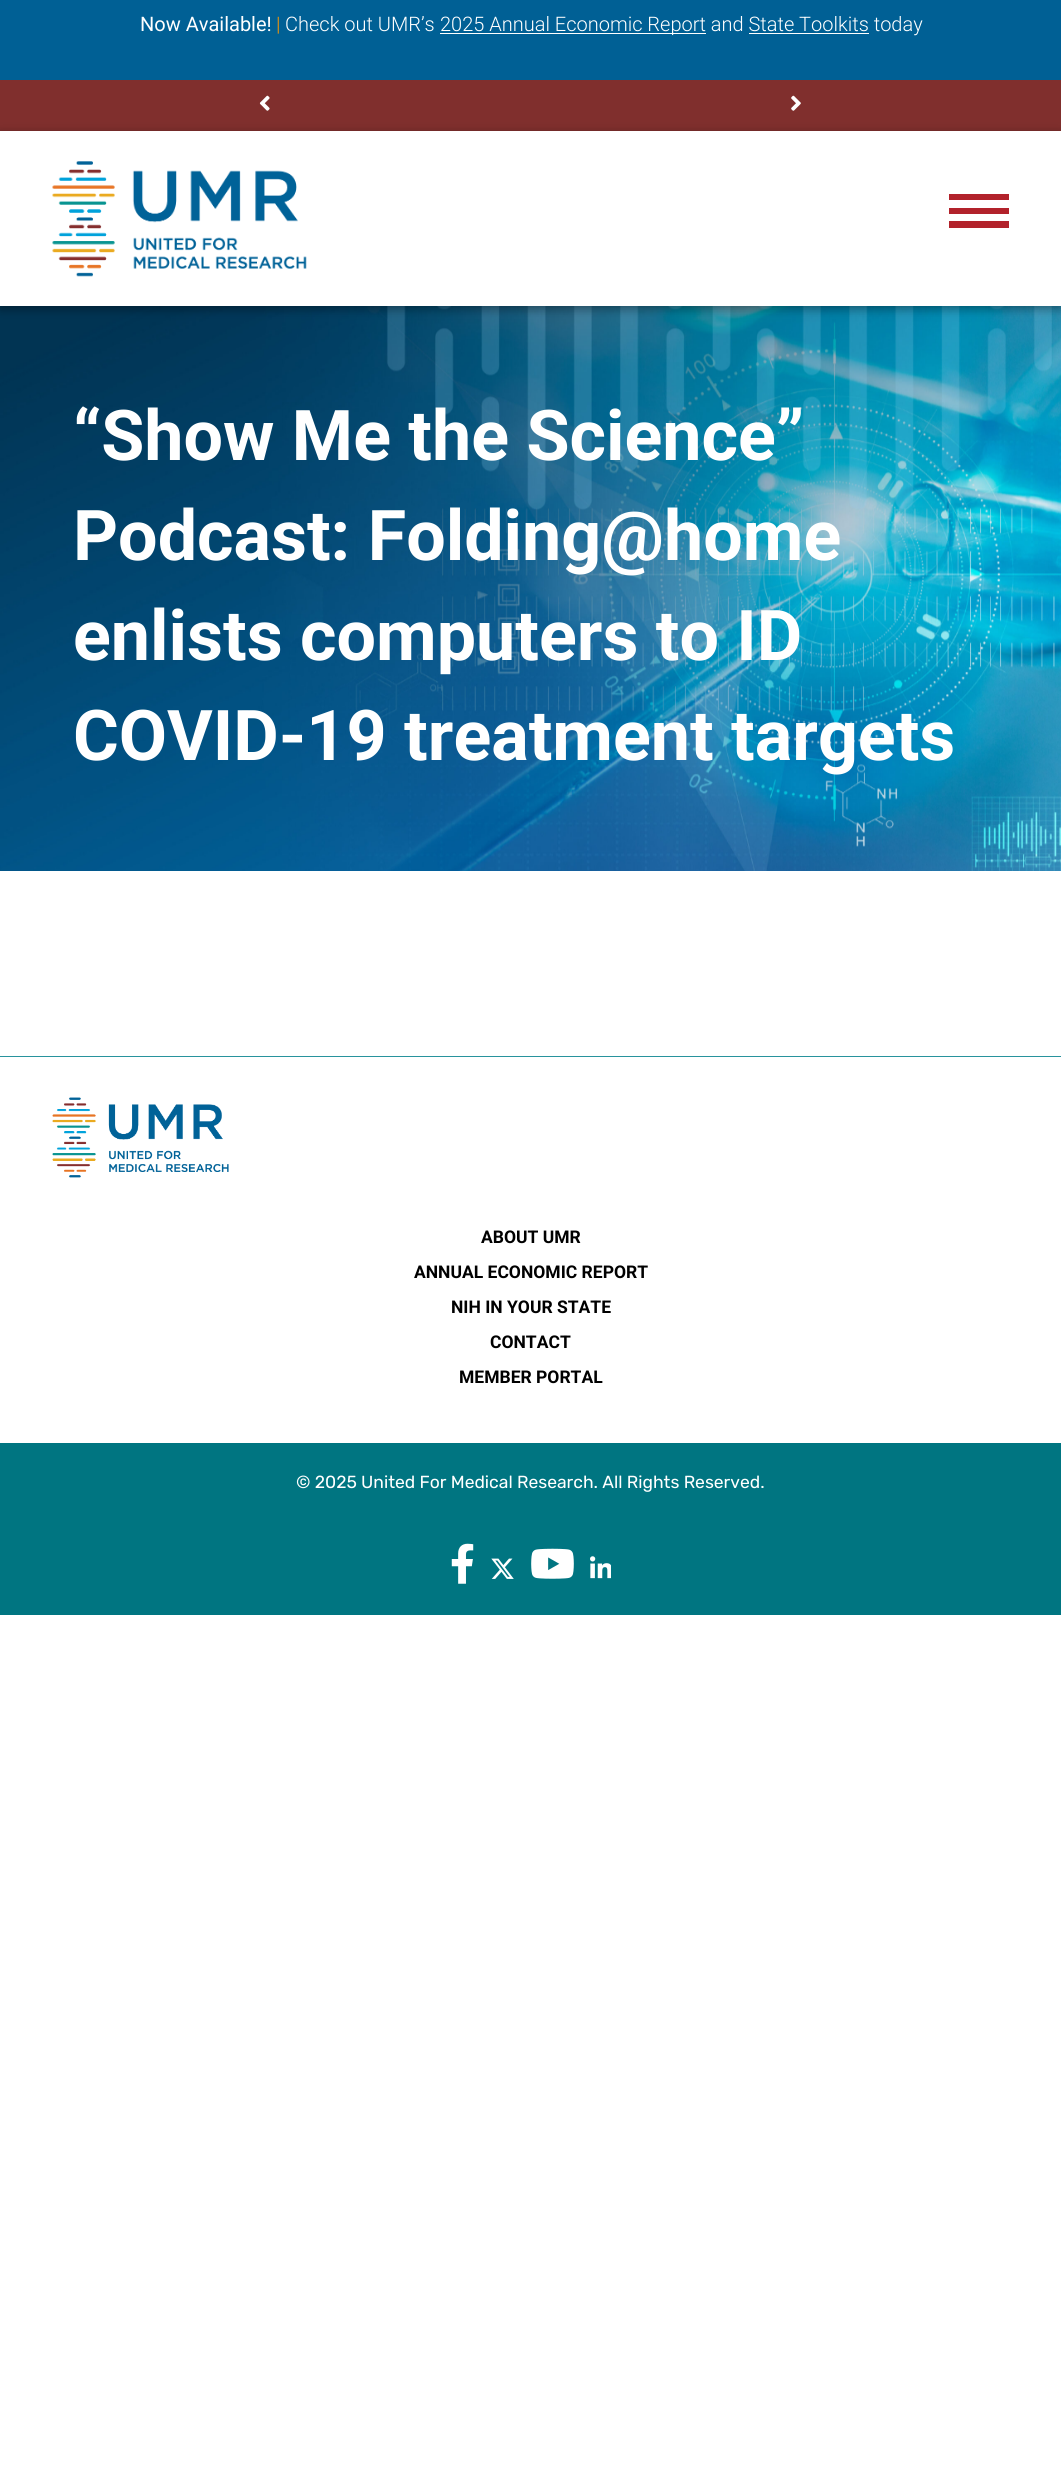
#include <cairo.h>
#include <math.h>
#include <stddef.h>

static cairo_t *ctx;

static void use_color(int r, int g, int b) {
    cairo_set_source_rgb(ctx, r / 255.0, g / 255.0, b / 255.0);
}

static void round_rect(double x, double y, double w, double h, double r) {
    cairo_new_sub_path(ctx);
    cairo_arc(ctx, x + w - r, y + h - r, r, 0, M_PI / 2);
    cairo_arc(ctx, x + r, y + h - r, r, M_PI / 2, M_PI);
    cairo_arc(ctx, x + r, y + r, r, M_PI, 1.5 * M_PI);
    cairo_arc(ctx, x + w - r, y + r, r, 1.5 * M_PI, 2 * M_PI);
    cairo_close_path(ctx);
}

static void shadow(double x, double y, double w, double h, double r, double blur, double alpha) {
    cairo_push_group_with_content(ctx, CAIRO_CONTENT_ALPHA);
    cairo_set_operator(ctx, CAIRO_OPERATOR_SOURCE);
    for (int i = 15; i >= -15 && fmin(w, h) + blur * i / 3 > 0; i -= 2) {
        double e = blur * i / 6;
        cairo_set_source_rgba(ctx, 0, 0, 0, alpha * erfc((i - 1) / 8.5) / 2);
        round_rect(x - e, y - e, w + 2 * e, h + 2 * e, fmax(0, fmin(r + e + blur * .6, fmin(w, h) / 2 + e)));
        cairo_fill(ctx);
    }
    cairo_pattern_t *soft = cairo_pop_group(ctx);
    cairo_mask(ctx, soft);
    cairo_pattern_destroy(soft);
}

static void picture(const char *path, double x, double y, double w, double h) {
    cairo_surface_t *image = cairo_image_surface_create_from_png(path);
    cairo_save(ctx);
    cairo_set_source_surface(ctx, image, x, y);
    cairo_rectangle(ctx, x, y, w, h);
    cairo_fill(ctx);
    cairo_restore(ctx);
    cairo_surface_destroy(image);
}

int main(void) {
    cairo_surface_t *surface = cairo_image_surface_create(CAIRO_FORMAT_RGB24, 1061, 2481);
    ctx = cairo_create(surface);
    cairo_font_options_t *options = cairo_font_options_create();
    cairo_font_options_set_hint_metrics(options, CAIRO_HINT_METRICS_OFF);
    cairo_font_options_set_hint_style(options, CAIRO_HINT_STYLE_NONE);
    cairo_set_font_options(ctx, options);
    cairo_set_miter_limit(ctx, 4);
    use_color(255, 255, 255);
    cairo_paint(ctx);
    use_color(0, 96, 149);
    cairo_rectangle(ctx, 0, 0, 1061, 80);
    cairo_fill(ctx);
    cairo_select_font_face(ctx, "Roboto", CAIRO_FONT_SLANT_NORMAL, CAIRO_FONT_WEIGHT_NORMAL);
    cairo_set_font_size(ctx, 20);
    use_color(255, 255, 255);
    cairo_move_to(ctx, 140, 31);
    cairo_show_text(ctx, "Now Available!");
    cairo_select_font_face(ctx, "Roboto Light", CAIRO_FONT_SLANT_NORMAL, CAIRO_FONT_WEIGHT_NORMAL);
    use_color(255, 153, 0);
    cairo_move_to(ctx, 276, 31);
    cairo_show_text(ctx, "|");
    use_color(255, 255, 255);
    cairo_move_to(ctx, 285, 31);
    cairo_show_text(ctx, "Check out UMR’s");
    cairo_rectangle(ctx, 440, 33, 266, 1);
    cairo_fill(ctx);
    cairo_move_to(ctx, 440, 31);
    cairo_show_text(ctx, "2025 Annual Economic Report and State Toolkits today");
    cairo_rectangle(ctx, 749, 33, 120, 1);
    cairo_fill(ctx);
    use_color(128, 47, 45);
    cairo_rectangle(ctx, 0, 80, 1061, 51);
    cairo_fill(ctx);
    picture("img1.png", 259, 95, 11, 16);
    picture("img2.png", 791, 95, 10, 16);
    picture("img4.png", 0, 306, 1061, 565);
    use_color(0, 0, 0);
    shadow(0, 134, 1061, 175, 0, 5, 0.4);
    use_color(255, 255, 255);
    cairo_rectangle(ctx, 0, 131, 1061, 175);
    cairo_fill(ctx);
    picture("img3.png", 52, 161, 255, 116);
    use_color(178, 34, 43);
    cairo_rectangle(ctx, 949, 194, 60, 6);
    cairo_fill(ctx);
    cairo_rectangle(ctx, 949, 208, 60, 6);
    cairo_fill(ctx);
    cairo_rectangle(ctx, 949, 221, 60, 7);
    cairo_fill(ctx);
    cairo_select_font_face(ctx, "Roboto", CAIRO_FONT_SLANT_NORMAL, CAIRO_FONT_WEIGHT_BOLD);
    cairo_set_font_size(ctx, 70);
    use_color(255, 255, 255);
    cairo_move_to(ctx, 73, 460);
    cairo_show_text(ctx, "“Show Me the Science”");
    cairo_move_to(ctx, 73, 560);
    cairo_show_text(ctx, "Podcast: Folding@home");
    cairo_move_to(ctx, 73, 660);
    cairo_show_text(ctx, "enlists computers to ID");
    cairo_move_to(ctx, 73, 760);
    cairo_show_text(ctx, "COVID-19 treatment targets");
    use_color(40, 147, 157);
    cairo_rectangle(ctx, 0, 1056, 1061, 1);
    cairo_fill(ctx);
    picture("img5.png", 52, 1097, 177, 81);
    cairo_set_font_size(ctx, 17.5);
    use_color(0, 0, 0);
    cairo_move_to(ctx, 481, 1243);
    cairo_show_text(ctx, "ABOUT UMR");
    cairo_move_to(ctx, 414, 1278);
    cairo_show_text(ctx, "ANNUAL ECONOMIC REPORT");
    cairo_move_to(ctx, 451, 1313);
    cairo_show_text(ctx, "NIH IN YOUR STATE");
    cairo_move_to(ctx, 490, 1348);
    cairo_show_text(ctx, "CONTACT");
    cairo_move_to(ctx, 459, 1383);
    cairo_show_text(ctx, "MEMBER PORTAL");
    use_color(0, 117, 129);
    cairo_rectangle(ctx, 0, 1443, 1061, 172);
    cairo_fill(ctx);
    cairo_select_font_face(ctx, "Rubik", CAIRO_FONT_SLANT_NORMAL, CAIRO_FONT_WEIGHT_NORMAL);
    use_color(255, 255, 255);
    cairo_move_to(ctx, 296, 1488);
    cairo_show_text(ctx, "© 2025 United For Medical Research. All Rights Reserved.");
    picture("img6.png", 451, 1543, 23, 41);
    picture("img7.png", 491, 1558, 23, 21);
    picture("img8.png", 531, 1548, 43, 31);
    picture("img9.png", 590, 1556, 21, 23);
    cairo_surface_write_to_png(surface, "result.png");
    cairo_font_options_destroy(options);
    cairo_destroy(ctx);
    cairo_surface_destroy(surface);
    return 0;
}
